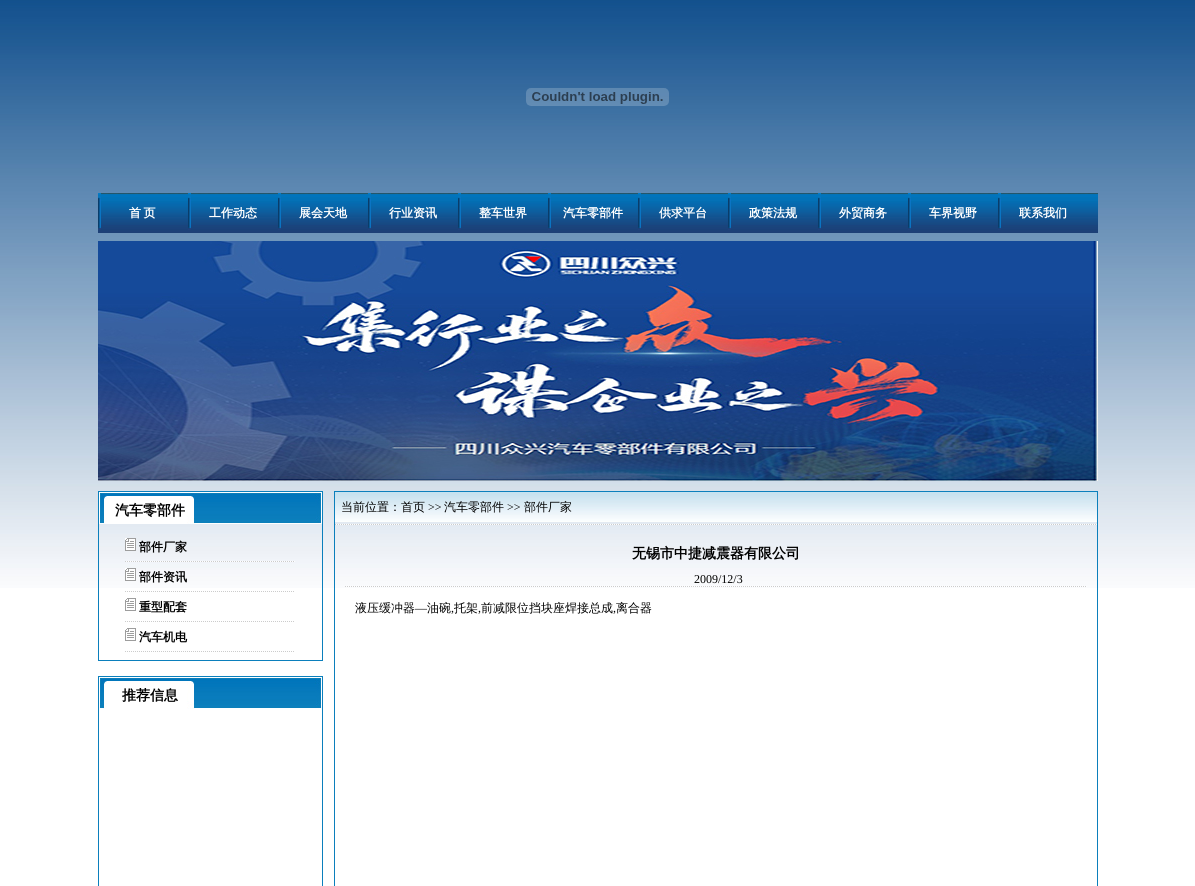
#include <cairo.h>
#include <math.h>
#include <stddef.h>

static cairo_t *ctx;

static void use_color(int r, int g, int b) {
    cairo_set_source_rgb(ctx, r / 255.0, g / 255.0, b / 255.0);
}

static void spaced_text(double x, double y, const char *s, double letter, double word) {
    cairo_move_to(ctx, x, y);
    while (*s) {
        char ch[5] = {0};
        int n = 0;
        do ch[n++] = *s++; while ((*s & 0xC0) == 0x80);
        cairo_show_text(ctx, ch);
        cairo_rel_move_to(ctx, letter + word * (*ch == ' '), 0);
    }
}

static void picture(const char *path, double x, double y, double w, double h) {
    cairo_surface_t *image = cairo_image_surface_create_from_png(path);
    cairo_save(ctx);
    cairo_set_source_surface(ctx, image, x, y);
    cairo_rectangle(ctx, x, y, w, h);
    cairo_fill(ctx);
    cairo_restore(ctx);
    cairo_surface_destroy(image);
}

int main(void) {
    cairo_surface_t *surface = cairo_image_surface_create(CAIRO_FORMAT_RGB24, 1195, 886);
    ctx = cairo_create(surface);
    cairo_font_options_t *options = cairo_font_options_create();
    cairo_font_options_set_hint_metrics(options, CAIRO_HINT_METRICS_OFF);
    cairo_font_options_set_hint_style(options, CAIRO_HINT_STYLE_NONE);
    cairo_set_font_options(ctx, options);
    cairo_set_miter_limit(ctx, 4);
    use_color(255, 255, 255);
    cairo_paint(ctx);
    picture("img1.png", 0, 0, 1195, 588);
    picture("img2.png", 526, 88, 143, 18);
    picture("img3.png", 98, 193, 1000, 40);
    picture("img4.png", 98, 193, 3, 37);
    cairo_select_font_face(ctx, "WenQuanYi Zen Hei", CAIRO_FONT_SLANT_NORMAL, CAIRO_FONT_WEIGHT_BOLD);
    cairo_set_font_size(ctx, 12);
    use_color(255, 255, 255);
    spaced_text(129, 217, "首 页", 0, -1);
    picture("img4.png", 188, 193, 3, 37);
    cairo_move_to(ctx, 209, 217);
    cairo_show_text(ctx, "工作动态");
    picture("img4.png", 278, 193, 3, 37);
    cairo_move_to(ctx, 299, 217);
    cairo_show_text(ctx, "展会天地");
    picture("img4.png", 368, 193, 3, 37);
    cairo_move_to(ctx, 389, 217);
    cairo_show_text(ctx, "行业资讯");
    picture("img4.png", 458, 193, 3, 37);
    cairo_move_to(ctx, 479, 217);
    cairo_show_text(ctx, "整车世界");
    picture("img5.png", 548, 193, 3, 37);
    cairo_move_to(ctx, 563, 217);
    cairo_show_text(ctx, "汽车零部件");
    picture("img5.png", 638, 193, 3, 37);
    cairo_move_to(ctx, 659, 217);
    cairo_show_text(ctx, "供求平台");
    picture("img5.png", 728, 193, 3, 37);
    cairo_move_to(ctx, 749, 217);
    cairo_show_text(ctx, "政策法规");
    picture("img5.png", 818, 193, 3, 37);
    cairo_move_to(ctx, 839, 217);
    cairo_show_text(ctx, "外贸商务");
    picture("img4.png", 908, 193, 3, 37);
    cairo_move_to(ctx, 929, 217);
    cairo_show_text(ctx, "车界视野");
    picture("img5.png", 998, 193, 3, 37);
    cairo_move_to(ctx, 1019, 217);
    cairo_show_text(ctx, "联系我们");
    picture("img6.png", 98, 241, 1000, 240);
    cairo_rectangle(ctx, 98.5, 491.5, 224, 169);
    use_color(11, 127, 188);
    cairo_set_line_width(ctx, 1);
    cairo_stroke(ctx);
    picture("img7.png", 99, 492, 223, 32);
    cairo_set_font_size(ctx, 14);
    use_color(0, 0, 0);
    cairo_move_to(ctx, 115, 515);
    cairo_show_text(ctx, "汽车零部件");
    picture("img8.png", 125, 561, 170, 1);
    picture("img9.png", 125, 538, 11, 13);
    cairo_set_font_size(ctx, 12);
    cairo_move_to(ctx, 139, 551);
    cairo_show_text(ctx, "部件厂家");
    picture("img10.png", 125, 591, 169, 1);
    picture("img9.png", 125, 568, 11, 13);
    cairo_move_to(ctx, 139, 581);
    cairo_show_text(ctx, "部件资讯");
    picture("img10.png", 125, 621, 169, 1);
    picture("img9.png", 125, 598, 11, 13);
    cairo_move_to(ctx, 139, 611);
    cairo_show_text(ctx, "重型配套");
    picture("img10.png", 125, 651, 169, 1);
    picture("img9.png", 125, 628, 11, 13);
    cairo_move_to(ctx, 139, 641);
    cairo_show_text(ctx, "汽车机电");
    cairo_rectangle(ctx, 98.5, 676.5, 224, 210);
    use_color(11, 127, 188);
    cairo_stroke(ctx);
    picture("img7.png", 99, 677, 223, 32);
    cairo_set_font_size(ctx, 14);
    use_color(0, 0, 0);
    cairo_move_to(ctx, 122, 700);
    cairo_show_text(ctx, "推荐信息");
    cairo_rectangle(ctx, 334.5, 491.5, 763, 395);
    use_color(11, 127, 188);
    cairo_stroke(ctx);
    picture("img11.png", 335, 492, 762, 30);
    cairo_select_font_face(ctx, "WenQuanYi Zen Hei Medium", CAIRO_FONT_SLANT_NORMAL, CAIRO_FONT_WEIGHT_NORMAL);
    cairo_set_font_size(ctx, 12);
    use_color(0, 0, 0);
    cairo_move_to(ctx, 341, 511);
    cairo_show_text(ctx, "当前位置：首页");
    cairo_select_font_face(ctx, "Liberation Serif", CAIRO_FONT_SLANT_NORMAL, CAIRO_FONT_WEIGHT_NORMAL);
    cairo_move_to(ctx, 428, 511);
    cairo_show_text(ctx, ">>");
    cairo_select_font_face(ctx, "WenQuanYi Zen Hei Medium", CAIRO_FONT_SLANT_NORMAL, CAIRO_FONT_WEIGHT_NORMAL);
    cairo_move_to(ctx, 444, 511);
    cairo_show_text(ctx, "汽车零部件");
    cairo_select_font_face(ctx, "Liberation Serif", CAIRO_FONT_SLANT_NORMAL, CAIRO_FONT_WEIGHT_NORMAL);
    cairo_move_to(ctx, 507, 511);
    cairo_show_text(ctx, ">>");
    cairo_select_font_face(ctx, "WenQuanYi Zen Hei Medium", CAIRO_FONT_SLANT_NORMAL, CAIRO_FONT_WEIGHT_NORMAL);
    cairo_move_to(ctx, 524, 511);
    cairo_show_text(ctx, "部件厂家");
    picture("img12.png", 335, 524, 762, 1);
    cairo_select_font_face(ctx, "WenQuanYi Zen Hei", CAIRO_FONT_SLANT_NORMAL, CAIRO_FONT_WEIGHT_BOLD);
    cairo_set_font_size(ctx, 14);
    cairo_move_to(ctx, 632, 558);
    cairo_show_text(ctx, "无锡市中捷减震器有限公司");
    picture("img13.png", 345, 586, 742, 1);
    cairo_select_font_face(ctx, "Liberation Serif", CAIRO_FONT_SLANT_NORMAL, CAIRO_FONT_WEIGHT_NORMAL);
    cairo_set_font_size(ctx, 12);
    cairo_move_to(ctx, 694, 583);
    cairo_show_text(ctx, "2009/12/3");
    cairo_select_font_face(ctx, "WenQuanYi Zen Hei Medium", CAIRO_FONT_SLANT_NORMAL, CAIRO_FONT_WEIGHT_NORMAL);
    cairo_move_to(ctx, 355, 612);
    cairo_show_text(ctx, "液压缓冲器");
    cairo_select_font_face(ctx, "Liberation Serif", CAIRO_FONT_SLANT_NORMAL, CAIRO_FONT_WEIGHT_NORMAL);
    cairo_move_to(ctx, 415, 612);
    cairo_show_text(ctx, "—");
    cairo_select_font_face(ctx, "WenQuanYi Zen Hei Medium", CAIRO_FONT_SLANT_NORMAL, CAIRO_FONT_WEIGHT_NORMAL);
    cairo_move_to(ctx, 427, 612);
    cairo_show_text(ctx, "油碗");
    cairo_move_to(ctx, 454, 612);
    cairo_show_text(ctx, "托架");
    cairo_move_to(ctx, 481, 612);
    cairo_show_text(ctx, "前减限位挡块座焊接总成");
    cairo_move_to(ctx, 616, 612);
    cairo_show_text(ctx, "离合器");
    cairo_select_font_face(ctx, "Liberation Serif", CAIRO_FONT_SLANT_NORMAL, CAIRO_FONT_WEIGHT_NORMAL);
    cairo_move_to(ctx, 451, 612);
    cairo_show_text(ctx, ",");
    cairo_move_to(ctx, 478, 612);
    cairo_show_text(ctx, ",");
    cairo_move_to(ctx, 613, 612);
    cairo_show_text(ctx, ",");
    cairo_surface_write_to_png(surface, "result.png");
    cairo_font_options_destroy(options);
    cairo_destroy(ctx);
    cairo_surface_destroy(surface);
    return 0;
}
